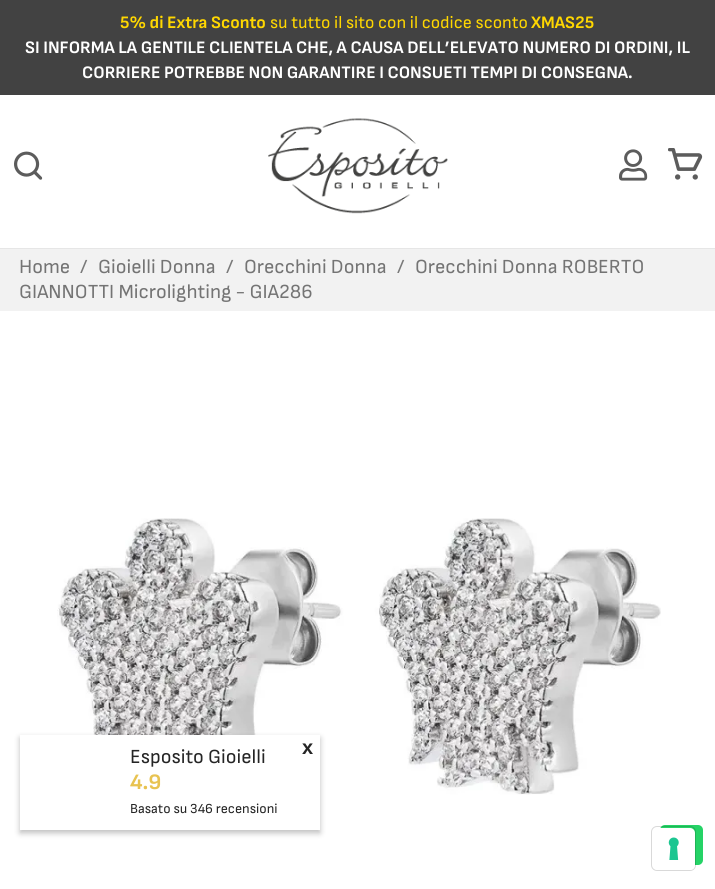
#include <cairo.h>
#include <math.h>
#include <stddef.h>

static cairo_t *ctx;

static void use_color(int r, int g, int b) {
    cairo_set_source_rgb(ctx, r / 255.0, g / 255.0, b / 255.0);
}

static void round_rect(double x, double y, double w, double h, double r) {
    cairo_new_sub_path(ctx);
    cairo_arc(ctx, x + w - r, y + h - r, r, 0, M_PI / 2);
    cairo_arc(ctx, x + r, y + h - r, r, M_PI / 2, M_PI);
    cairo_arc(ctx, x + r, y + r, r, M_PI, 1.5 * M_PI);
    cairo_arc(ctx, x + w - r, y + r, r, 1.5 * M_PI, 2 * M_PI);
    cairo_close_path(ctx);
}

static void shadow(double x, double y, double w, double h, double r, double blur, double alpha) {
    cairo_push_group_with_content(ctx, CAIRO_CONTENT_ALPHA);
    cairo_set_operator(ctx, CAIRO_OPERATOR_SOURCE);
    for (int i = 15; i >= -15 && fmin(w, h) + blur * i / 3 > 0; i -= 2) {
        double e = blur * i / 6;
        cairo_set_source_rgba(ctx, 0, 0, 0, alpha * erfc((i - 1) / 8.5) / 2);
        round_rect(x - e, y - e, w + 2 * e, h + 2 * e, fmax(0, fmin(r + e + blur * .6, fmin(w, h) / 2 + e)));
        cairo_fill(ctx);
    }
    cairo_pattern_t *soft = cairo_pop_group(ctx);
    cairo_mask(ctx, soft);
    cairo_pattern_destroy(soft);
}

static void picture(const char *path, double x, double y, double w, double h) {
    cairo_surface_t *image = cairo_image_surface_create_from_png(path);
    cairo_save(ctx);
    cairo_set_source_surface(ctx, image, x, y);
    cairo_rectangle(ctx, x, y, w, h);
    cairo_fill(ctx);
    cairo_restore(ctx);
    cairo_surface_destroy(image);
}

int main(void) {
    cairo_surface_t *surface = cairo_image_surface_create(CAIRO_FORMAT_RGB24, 715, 889);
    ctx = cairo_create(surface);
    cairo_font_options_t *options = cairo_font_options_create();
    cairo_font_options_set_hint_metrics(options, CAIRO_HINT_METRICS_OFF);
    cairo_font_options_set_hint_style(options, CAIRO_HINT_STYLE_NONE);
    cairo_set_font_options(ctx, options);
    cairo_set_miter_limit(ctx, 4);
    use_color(255, 255, 255);
    cairo_paint(ctx);
    use_color(230, 230, 230);
    cairo_rectangle(ctx, 0, 248, 715, 1);
    cairo_fill(ctx);
    use_color(66, 66, 66);
    cairo_rectangle(ctx, 0, 0, 715, 95);
    cairo_fill(ctx);
    cairo_select_font_face(ctx, "Sofia Sans", CAIRO_FONT_SLANT_NORMAL, CAIRO_FONT_WEIGHT_BOLD);
    cairo_set_font_size(ctx, 17.5);
    use_color(255, 215, 0);
    cairo_move_to(ctx, 120, 28);
    cairo_show_text(ctx, "5% di Extra Sconto");
    cairo_select_font_face(ctx, "Sofia Sans", CAIRO_FONT_SLANT_NORMAL, CAIRO_FONT_WEIGHT_NORMAL);
    cairo_move_to(ctx, 270, 28);
    cairo_show_text(ctx, "su tutto il sito con il codice sconto");
    cairo_select_font_face(ctx, "Sofia Sans", CAIRO_FONT_SLANT_NORMAL, CAIRO_FONT_WEIGHT_BOLD);
    cairo_move_to(ctx, 531, 28);
    cairo_show_text(ctx, "XMAS25");
    use_color(255, 255, 255);
    cairo_move_to(ctx, 25, 53);
    cairo_show_text(ctx, "SI INFORMA LA GENTILE CLIENTELA CHE, A CAUSA DELL’ELEVATO NUMERO DI ORDINI, IL");
    cairo_move_to(ctx, 82, 78);
    cairo_show_text(ctx, "CORRIERE POTREBBE NON GARANTIRE I CONSUETI TEMPI DI CONSEGNA.");
    picture("img1.png", 14, 151, 29, 29);
    picture("img2.png", 268, 118, 180, 96);
    picture("img3.png", 619, 149, 29, 32);
    picture("img4.png", 668, 148, 35, 32);
    use_color(242, 242, 242);
    cairo_rectangle(ctx, 0, 249, 715, 62);
    cairo_fill(ctx);
    cairo_select_font_face(ctx, "Sofia Sans", CAIRO_FONT_SLANT_NORMAL, CAIRO_FONT_WEIGHT_NORMAL);
    cairo_set_font_size(ctx, 20);
    use_color(116, 116, 116);
    cairo_move_to(ctx, 19, 273);
    cairo_show_text(ctx, "Home");
    use_color(122, 122, 122);
    cairo_move_to(ctx, 80, 273);
    cairo_show_text(ctx, "/");
    use_color(116, 116, 116);
    cairo_move_to(ctx, 98, 273);
    cairo_show_text(ctx, "Gioielli Donna");
    use_color(122, 122, 122);
    cairo_move_to(ctx, 226, 273);
    cairo_show_text(ctx, "/");
    use_color(116, 116, 116);
    cairo_move_to(ctx, 244, 273);
    cairo_show_text(ctx, "Orecchini Donna");
    use_color(122, 122, 122);
    cairo_move_to(ctx, 397, 273);
    cairo_show_text(ctx, "/");
    use_color(116, 116, 116);
    cairo_move_to(ctx, 415, 273);
    cairo_show_text(ctx, "Orecchini Donna ROBERTO");
    cairo_move_to(ctx, 19, 298);
    cairo_show_text(ctx, "GIANNOTTI Microlighting - GIA286");
    picture("img5.png", 57, 518, 604, 277);
    use_color(0, 0, 0);
    shadow(20, 738, 300, 95, 0, 3, 0.26);
    use_color(255, 255, 255);
    cairo_rectangle(ctx, 20, 735, 300, 95);
    cairo_fill(ctx);
    use_color(37, 37, 37);
    cairo_move_to(ctx, 130, 763);
    cairo_show_text(ctx, "Esposito Gioielli");
    cairo_select_font_face(ctx, "Sofia Sans", CAIRO_FONT_SLANT_NORMAL, CAIRO_FONT_WEIGHT_BOLD);
    cairo_set_font_size(ctx, 22);
    use_color(232, 195, 81);
    cairo_move_to(ctx, 130, 789);
    cairo_show_text(ctx, "4.9");
    cairo_select_font_face(ctx, "Sofia Sans", CAIRO_FONT_SLANT_NORMAL, CAIRO_FONT_WEIGHT_NORMAL);
    cairo_set_font_size(ctx, 13.75);
    use_color(37, 37, 37);
    cairo_move_to(ctx, 130, 813);
    cairo_show_text(ctx, "Basato su 346 recensioni");
    cairo_select_font_face(ctx, "Liberation Sans", CAIRO_FONT_SLANT_NORMAL, CAIRO_FONT_WEIGHT_BOLD);
    cairo_set_font_size(ctx, 20);
    cairo_move_to(ctx, 302, 754);
    cairo_show_text(ctx, "x");
    use_color(37, 211, 102);
    round_rect(660, 825, 43, 40, 5);
    cairo_fill(ctx);
    round_rect(651.5, 826.5, 44, 44, 5.5);
    cairo_set_source_rgba(ctx, 0, 0, 0, 0.15);
    cairo_set_line_width(ctx, 1);
    cairo_stroke(ctx);
    use_color(255, 255, 255);
    round_rect(653, 828, 42, 42, 5);
    cairo_fill(ctx);
    picture("img6.png", 668, 837, 11, 23);
    cairo_surface_write_to_png(surface, "result.png");
    cairo_font_options_destroy(options);
    cairo_destroy(ctx);
    cairo_surface_destroy(surface);
    return 0;
}
